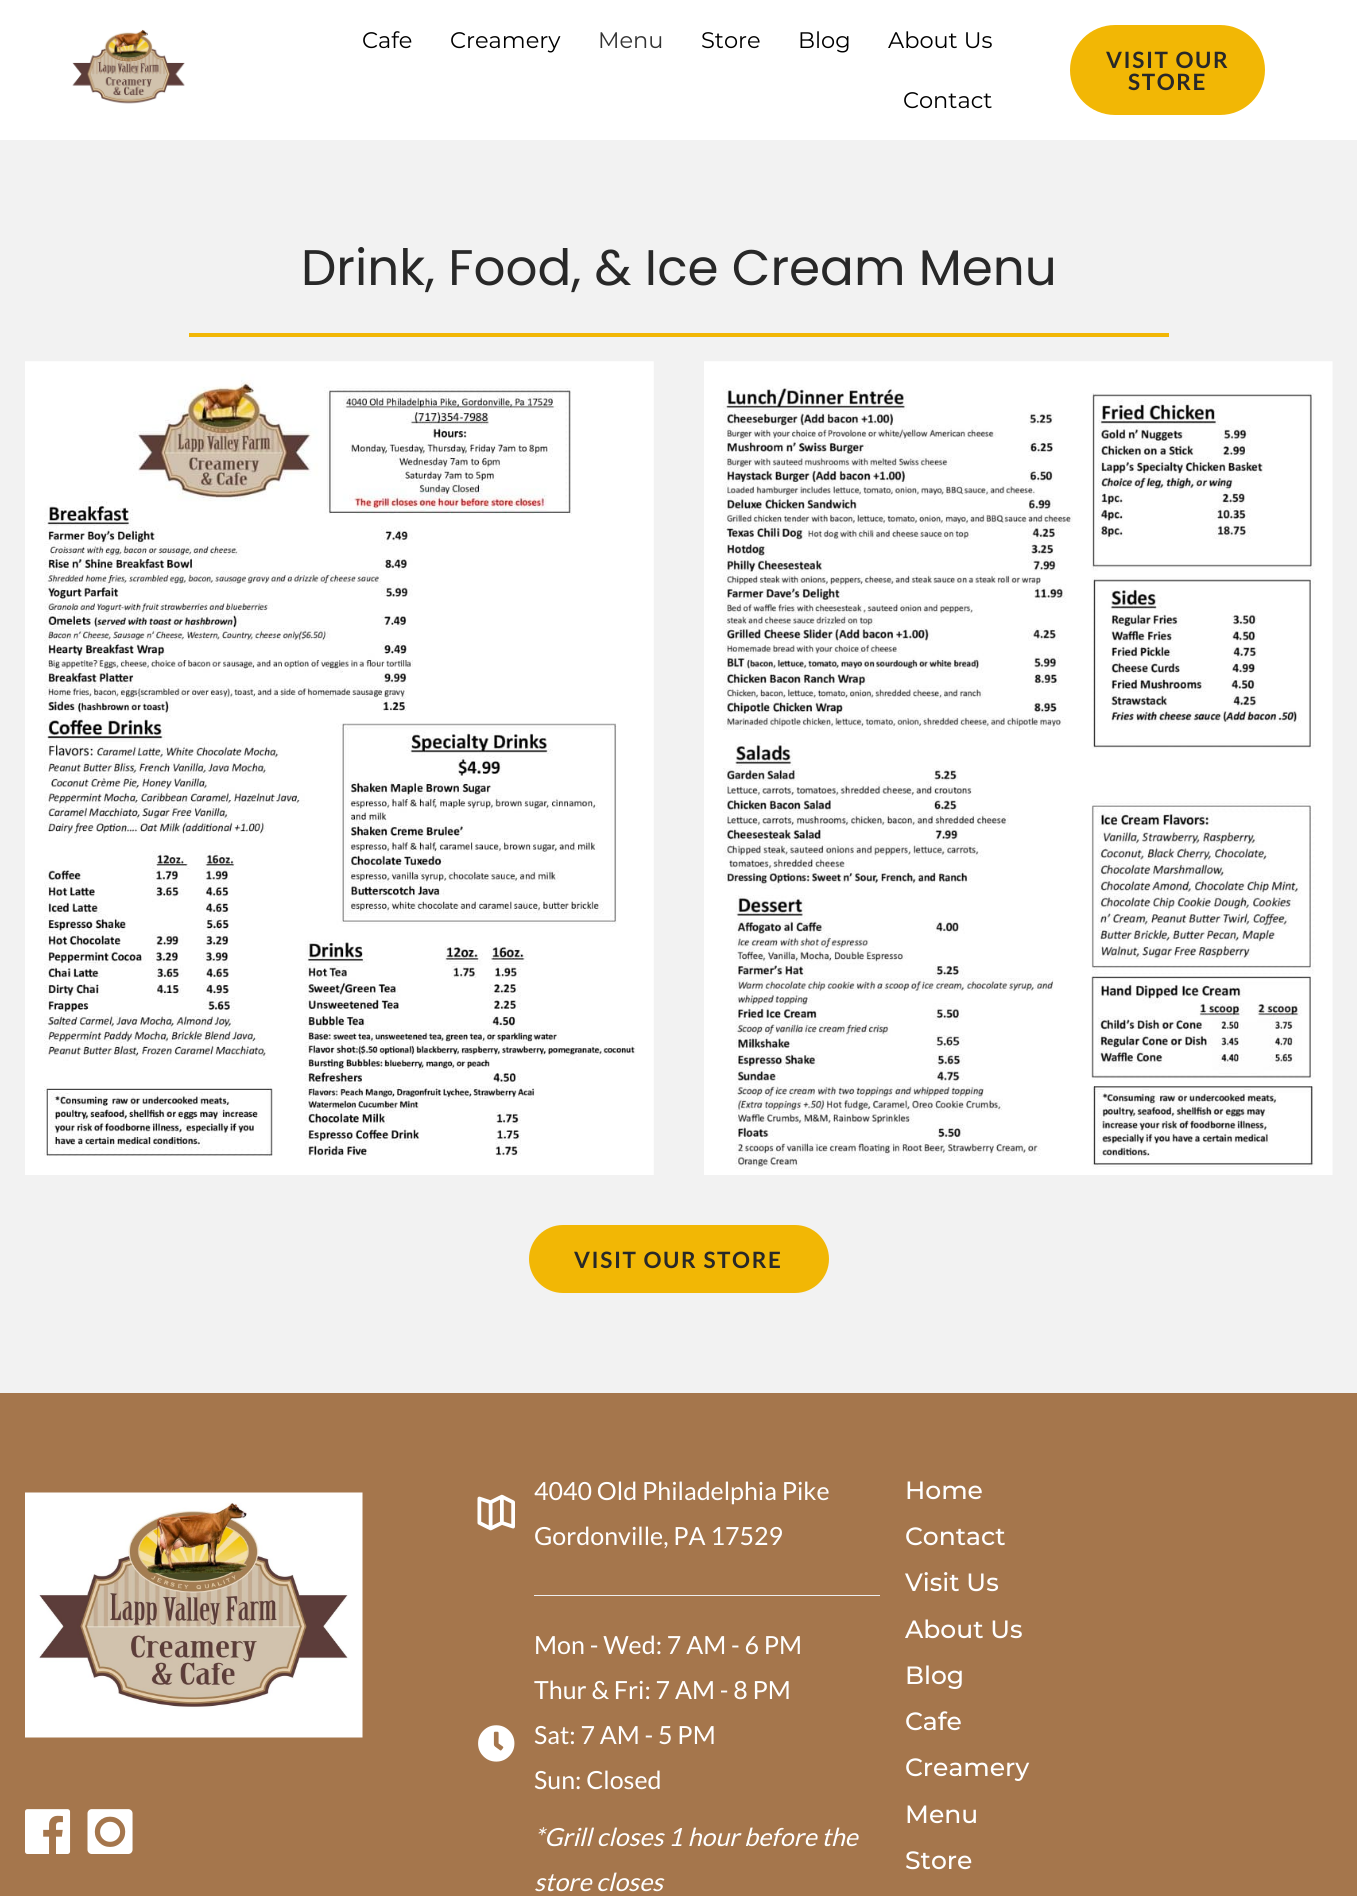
#include <cairo.h>
#include <math.h>
#include <stddef.h>

static cairo_t *ctx;

static void use_color(int r, int g, int b) {
    cairo_set_source_rgb(ctx, r / 255.0, g / 255.0, b / 255.0);
}

static void spaced_text(double x, double y, const char *s, double letter, double word) {
    cairo_move_to(ctx, x, y);
    while (*s) {
        char ch[5] = {0};
        int n = 0;
        do ch[n++] = *s++; while ((*s & 0xC0) == 0x80);
        cairo_show_text(ctx, ch);
        cairo_rel_move_to(ctx, letter + word * (*ch == ' '), 0);
    }
}

static void round_rect(double x, double y, double w, double h, double r) {
    cairo_new_sub_path(ctx);
    cairo_arc(ctx, x + w - r, y + h - r, r, 0, M_PI / 2);
    cairo_arc(ctx, x + r, y + h - r, r, M_PI / 2, M_PI);
    cairo_arc(ctx, x + r, y + r, r, M_PI, 1.5 * M_PI);
    cairo_arc(ctx, x + w - r, y + r, r, 1.5 * M_PI, 2 * M_PI);
    cairo_close_path(ctx);
}

static void picture(const char *path, double x, double y, double w, double h) {
    cairo_surface_t *image = cairo_image_surface_create_from_png(path);
    cairo_save(ctx);
    cairo_set_source_surface(ctx, image, x, y);
    cairo_rectangle(ctx, x, y, w, h);
    cairo_fill(ctx);
    cairo_restore(ctx);
    cairo_surface_destroy(image);
}

int main(void) {
    cairo_surface_t *surface = cairo_image_surface_create(CAIRO_FORMAT_RGB24, 1357, 1896);
    ctx = cairo_create(surface);
    cairo_font_options_t *options = cairo_font_options_create();
    cairo_font_options_set_hint_metrics(options, CAIRO_HINT_METRICS_OFF);
    cairo_font_options_set_hint_style(options, CAIRO_HINT_STYLE_NONE);
    cairo_set_font_options(ctx, options);
    cairo_set_miter_limit(ctx, 4);
    use_color(255, 255, 255);
    cairo_paint(ctx);
    picture("img1.png", 72, 29, 113, 75);
    cairo_select_font_face(ctx, "Montserrat", CAIRO_FONT_SLANT_NORMAL, CAIRO_FONT_WEIGHT_NORMAL);
    cairo_set_font_size(ctx, 22.5);
    use_color(0, 0, 0);
    cairo_move_to(ctx, 362, 48);
    cairo_show_text(ctx, "Cafe");
    cairo_move_to(ctx, 450, 48);
    cairo_show_text(ctx, "Creamery");
    use_color(51, 51, 51);
    cairo_move_to(ctx, 598, 48);
    cairo_show_text(ctx, "Menu");
    use_color(0, 0, 0);
    cairo_move_to(ctx, 701, 48);
    cairo_show_text(ctx, "Store");
    cairo_move_to(ctx, 798, 48);
    cairo_show_text(ctx, "Blog");
    cairo_move_to(ctx, 888, 48);
    cairo_show_text(ctx, "About Us");
    cairo_move_to(ctx, 903, 108);
    cairo_show_text(ctx, "Contact");
    use_color(242, 183, 5);
    round_rect(1070, 25, 195, 90, 45);
    cairo_fill(ctx);
    cairo_select_font_face(ctx, "Lato", CAIRO_FONT_SLANT_NORMAL, CAIRO_FONT_WEIGHT_BOLD);
    use_color(40, 40, 40);
    spaced_text(1106, 68, "VISIT OUR", 1.6, 0);
    spaced_text(1128, 90, "STORE", 1.6, 0);
    use_color(242, 242, 242);
    cairo_rectangle(ctx, 0, 140, 1357, 1253);
    cairo_fill(ctx);
    cairo_select_font_face(ctx, "Poppins", CAIRO_FONT_SLANT_NORMAL, CAIRO_FONT_WEIGHT_NORMAL);
    cairo_set_font_size(ctx, 50);
    use_color(40, 40, 40);
    cairo_move_to(ctx, 301, 285);
    cairo_show_text(ctx, "Drink, Food, & Ice Cream Menu");
    use_color(242, 183, 5);
    cairo_rectangle(ctx, 189, 333, 980, 4);
    cairo_fill(ctx);
    picture("img2.png", 25, 361, 629, 814);
    picture("img3.png", 704, 361, 629, 814);
    round_rect(529, 1225, 300, 68, 34);
    cairo_fill(ctx);
    cairo_select_font_face(ctx, "Lato", CAIRO_FONT_SLANT_NORMAL, CAIRO_FONT_WEIGHT_BOLD);
    cairo_set_font_size(ctx, 22.5);
    use_color(40, 40, 40);
    spaced_text(574, 1268, "VISIT OUR STORE", 1.6, 0);
    use_color(165, 118, 76);
    cairo_rectangle(ctx, 0, 1393, 1357, 503);
    cairo_fill(ctx);
    picture("img4.png", 25, 1492, 338, 246);
    picture("img5.png", 25, 1809, 46, 45);
    picture("img6.png", 87, 1809, 46, 45);
    picture("img7.png", 477, 1494, 38, 37);
    cairo_select_font_face(ctx, "Lato", CAIRO_FONT_SLANT_NORMAL, CAIRO_FONT_WEIGHT_NORMAL);
    cairo_set_font_size(ctx, 25);
    use_color(255, 255, 255);
    cairo_move_to(ctx, 534, 1500);
    cairo_show_text(ctx, "4040 Old Philadelphia Pike");
    cairo_move_to(ctx, 534, 1545);
    cairo_show_text(ctx, "Gordonville, PA 17529");
    picture("img8.png", 478, 1725, 37, 37);
    use_color(238, 238, 238);
    cairo_rectangle(ctx, 534, 1595, 346, 1);
    cairo_fill(ctx);
    use_color(255, 255, 255);
    cairo_move_to(ctx, 534, 1654);
    cairo_show_text(ctx, "Mon - Wed: 7 AM - 6 PM");
    cairo_move_to(ctx, 534, 1699);
    cairo_show_text(ctx, "Thur & Fri: 7 AM - 8 PM");
    cairo_move_to(ctx, 534, 1744);
    cairo_show_text(ctx, "Sat: 7 AM - 5 PM");
    cairo_move_to(ctx, 534, 1789);
    cairo_show_text(ctx, "Sun: Closed");
    cairo_select_font_face(ctx, "Lato", CAIRO_FONT_SLANT_ITALIC, CAIRO_FONT_WEIGHT_NORMAL);
    cairo_move_to(ctx, 534, 1846);
    cairo_show_text(ctx, "*Grill closes 1 hour before the");
    cairo_move_to(ctx, 534, 1891);
    cairo_show_text(ctx, "store closes");
    cairo_select_font_face(ctx, "Montserrat Medium", CAIRO_FONT_SLANT_NORMAL, CAIRO_FONT_WEIGHT_NORMAL);
    cairo_move_to(ctx, 905, 1499);
    cairo_show_text(ctx, "Home");
    cairo_move_to(ctx, 905, 1545);
    cairo_show_text(ctx, "Contact");
    cairo_move_to(ctx, 905, 1591);
    cairo_show_text(ctx, "Visit Us");
    cairo_move_to(ctx, 905, 1638);
    cairo_show_text(ctx, "About Us");
    cairo_move_to(ctx, 905, 1684);
    cairo_show_text(ctx, "Blog");
    cairo_move_to(ctx, 905, 1730);
    cairo_show_text(ctx, "Cafe");
    cairo_move_to(ctx, 905, 1776);
    cairo_show_text(ctx, "Creamery");
    cairo_move_to(ctx, 905, 1823);
    cairo_show_text(ctx, "Menu");
    cairo_move_to(ctx, 905, 1869);
    cairo_show_text(ctx, "Store");
    cairo_surface_write_to_png(surface, "result.png");
    cairo_font_options_destroy(options);
    cairo_destroy(ctx);
    cairo_surface_destroy(surface);
    return 0;
}
